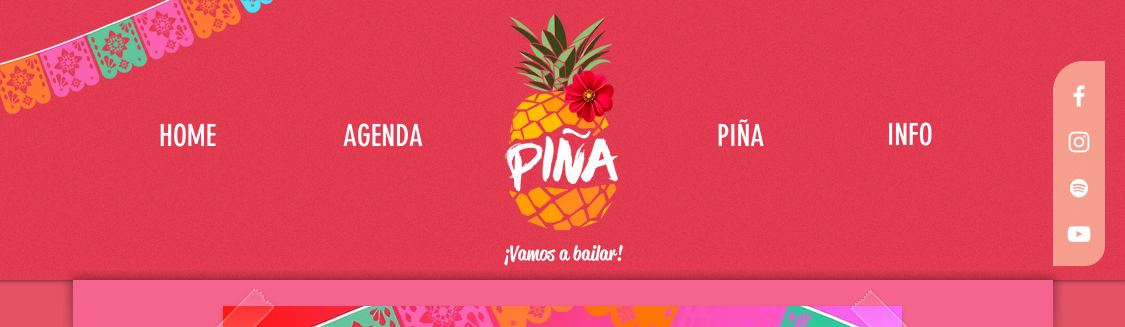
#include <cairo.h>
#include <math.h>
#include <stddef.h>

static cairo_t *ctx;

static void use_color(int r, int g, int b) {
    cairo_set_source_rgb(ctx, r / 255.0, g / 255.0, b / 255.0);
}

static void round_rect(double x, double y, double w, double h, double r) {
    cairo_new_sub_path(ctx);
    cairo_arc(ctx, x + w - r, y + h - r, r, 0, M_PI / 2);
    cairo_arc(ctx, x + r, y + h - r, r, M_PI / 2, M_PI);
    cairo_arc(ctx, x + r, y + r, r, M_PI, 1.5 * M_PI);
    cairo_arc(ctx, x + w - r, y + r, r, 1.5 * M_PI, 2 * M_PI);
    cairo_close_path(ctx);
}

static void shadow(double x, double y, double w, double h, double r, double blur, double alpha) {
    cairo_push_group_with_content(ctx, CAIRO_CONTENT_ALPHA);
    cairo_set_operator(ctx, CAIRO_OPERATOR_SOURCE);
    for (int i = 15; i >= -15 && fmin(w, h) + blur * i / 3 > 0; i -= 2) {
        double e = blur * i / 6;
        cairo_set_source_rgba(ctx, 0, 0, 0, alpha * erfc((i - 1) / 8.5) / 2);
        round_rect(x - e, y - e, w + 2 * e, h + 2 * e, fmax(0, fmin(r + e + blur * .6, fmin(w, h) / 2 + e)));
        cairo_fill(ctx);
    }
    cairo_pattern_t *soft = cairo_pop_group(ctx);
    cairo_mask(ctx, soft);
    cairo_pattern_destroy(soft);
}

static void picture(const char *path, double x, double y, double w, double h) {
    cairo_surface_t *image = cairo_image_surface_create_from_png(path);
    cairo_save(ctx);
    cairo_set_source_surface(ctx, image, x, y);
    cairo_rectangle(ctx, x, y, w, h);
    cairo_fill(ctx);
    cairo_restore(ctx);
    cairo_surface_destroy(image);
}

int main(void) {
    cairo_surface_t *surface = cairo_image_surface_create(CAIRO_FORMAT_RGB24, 1125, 327);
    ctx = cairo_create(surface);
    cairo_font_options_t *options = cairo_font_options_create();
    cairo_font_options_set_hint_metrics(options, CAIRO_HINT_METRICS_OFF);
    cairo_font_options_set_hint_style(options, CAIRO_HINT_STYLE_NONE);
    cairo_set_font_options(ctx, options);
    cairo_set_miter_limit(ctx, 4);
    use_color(227, 82, 101);
    cairo_paint(ctx);
    use_color(0, 0, 0);
    shadow(0, 0, 1125, 280, 0, 2.5, 0.7);
    use_color(232, 58, 81);
    cairo_rectangle(ctx, 0, 0, 1125, 280);
    cairo_fill(ctx);
    picture("img2.png", 0, 0, 1125, 280);
    picture("img1.png", 0, 0, 273, 114);
    picture("img3.png", 504, 14, 114, 217);
    picture("img4.png", 564, 70, 50, 53);
    cairo_select_font_face(ctx, "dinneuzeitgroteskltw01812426", CAIRO_FONT_SLANT_NORMAL, CAIRO_FONT_WEIGHT_NORMAL);
    cairo_set_font_size(ctx, 30);
    use_color(255, 255, 255);
    cairo_move_to(ctx, 159, 146);
    cairo_show_text(ctx, "HOME");
    cairo_move_to(ctx, 343, 146);
    cairo_show_text(ctx, "AGENDA");
    cairo_move_to(ctx, 717, 146);
    cairo_show_text(ctx, "PIÑA");
    cairo_move_to(ctx, 887, 145);
    cairo_show_text(ctx, "INFO");
    cairo_select_font_face(ctx, "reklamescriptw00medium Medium", CAIRO_FONT_SLANT_NORMAL, CAIRO_FONT_WEIGHT_NORMAL);
    cairo_set_font_size(ctx, 20);
    cairo_move_to(ctx, 503, 260);
    cairo_show_text(ctx, "¡Vamos a bailar!");
    cairo_set_source_rgba(ctx, 1, 0.796, 0.667, 0.69);
    cairo_new_path(ctx);
    cairo_move_to(ctx, 1083, 61);
    cairo_line_to(ctx, 1105, 61);
    cairo_line_to(ctx, 1105, 246);
    cairo_curve_to(ctx, 1105, 257, 1096, 266, 1085, 266);
    cairo_line_to(ctx, 1053, 266);
    cairo_line_to(ctx, 1053, 91);
    cairo_curve_to(ctx, 1053, 74.5, 1066.5, 61, 1083, 61);
    cairo_close_path(ctx);
    cairo_fill(ctx);
    picture("img5.png", 1073, 85, 12, 22);
    picture("img6.png", 1068, 131, 22, 22);
    picture("img7.png", 1069, 178, 20, 20);
    picture("img8.png", 1067, 226, 24, 17);
    picture("img9.png", 63, 270, 45, 57);
    picture("img10.png", 108, 270, 910, 10);
    picture("img11.png", 1018, 270, 45, 57);
    use_color(244, 100, 142);
    cairo_rectangle(ctx, 73, 280, 980, 47);
    cairo_fill(ctx);
    use_color(0, 0, 0);
    shadow(223, 308, 679, 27, 0, 2.5, 0.15);
    picture("img14.png", 223, 306, 679, 21);
    picture("img12.png", 215, 288, 60, 39);
    picture("img13.png", 850, 289, 60, 38);
    cairo_surface_write_to_png(surface, "result.png");
    cairo_font_options_destroy(options);
    cairo_destroy(ctx);
    cairo_surface_destroy(surface);
    return 0;
}
